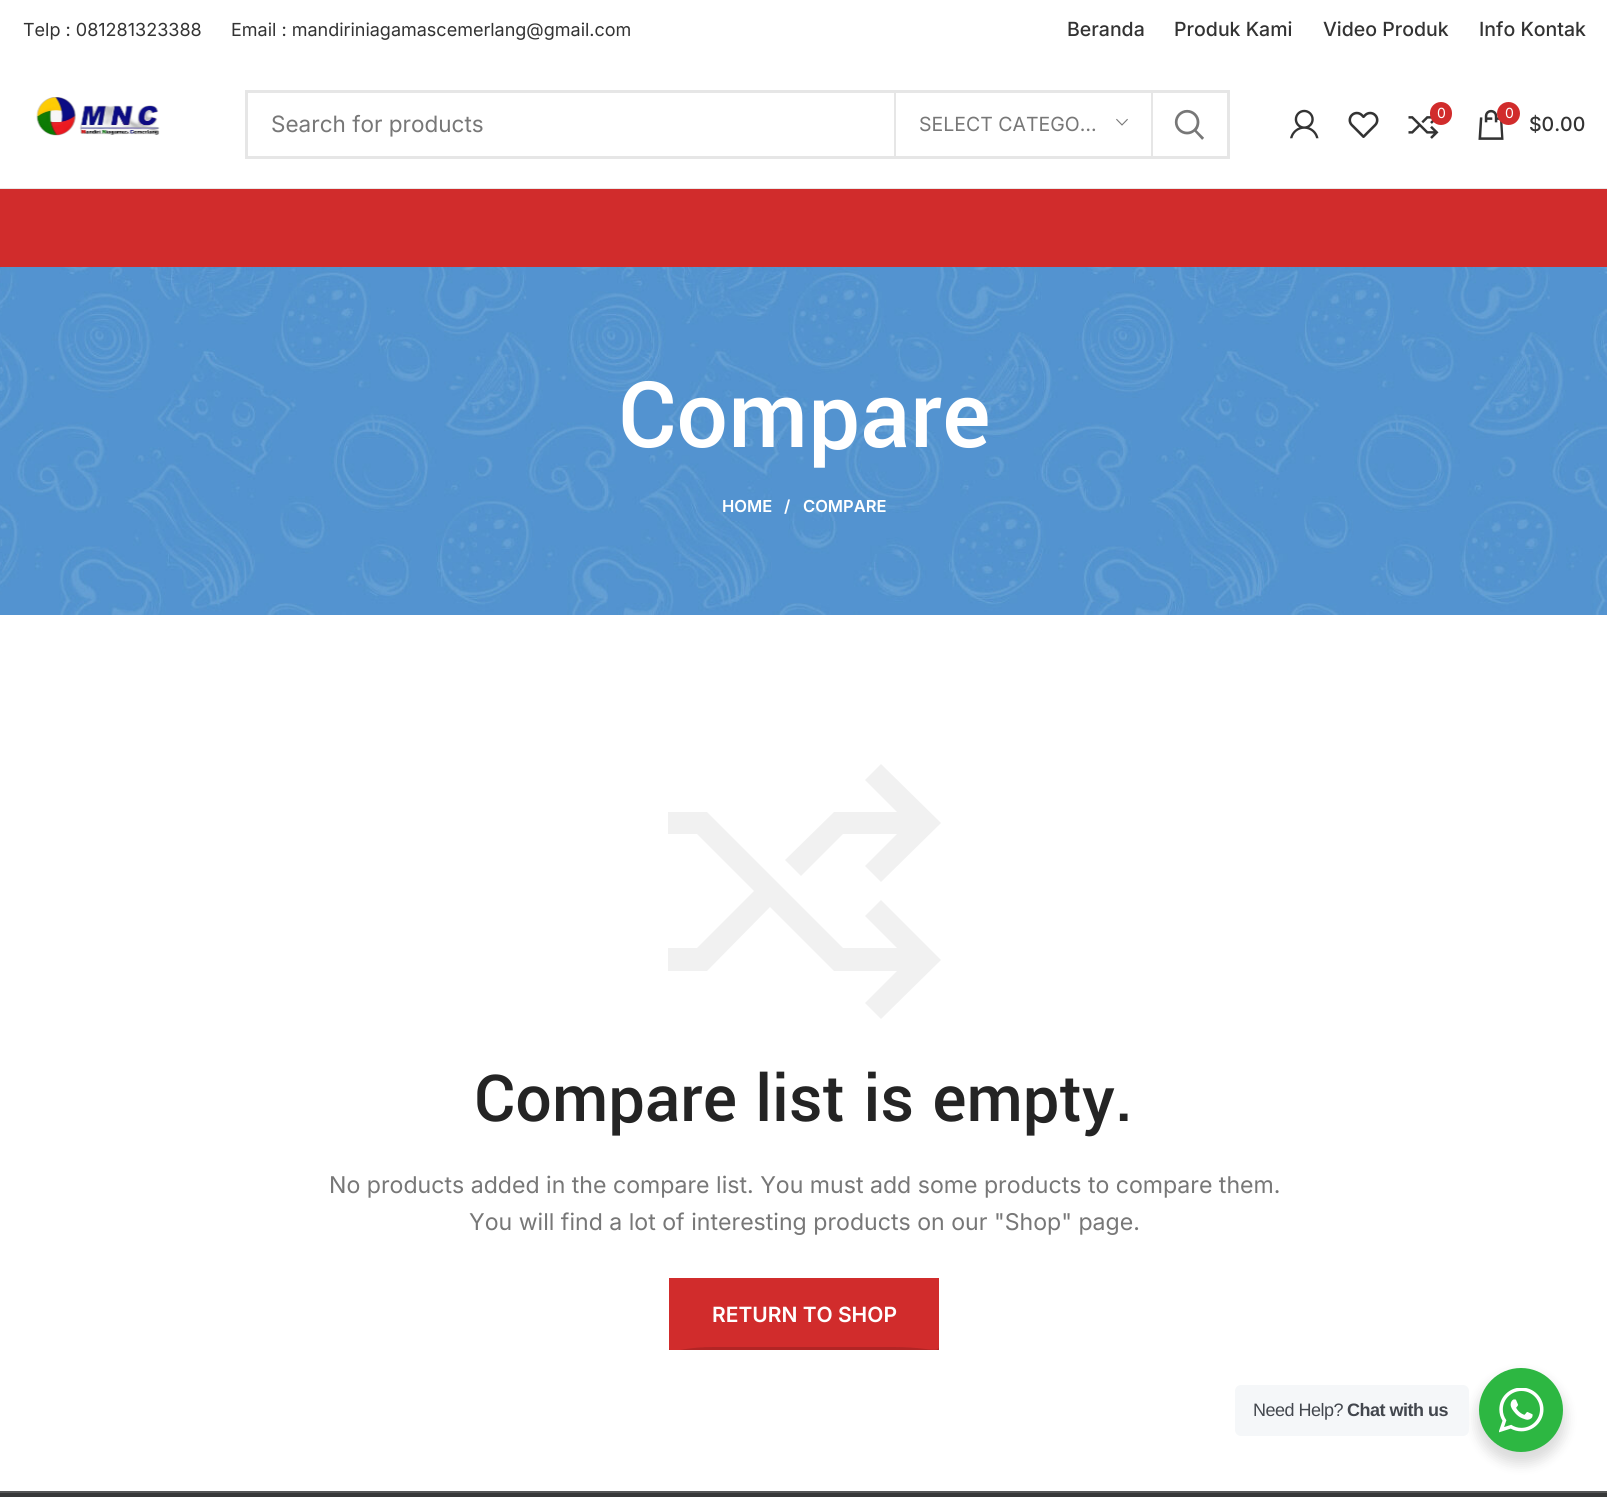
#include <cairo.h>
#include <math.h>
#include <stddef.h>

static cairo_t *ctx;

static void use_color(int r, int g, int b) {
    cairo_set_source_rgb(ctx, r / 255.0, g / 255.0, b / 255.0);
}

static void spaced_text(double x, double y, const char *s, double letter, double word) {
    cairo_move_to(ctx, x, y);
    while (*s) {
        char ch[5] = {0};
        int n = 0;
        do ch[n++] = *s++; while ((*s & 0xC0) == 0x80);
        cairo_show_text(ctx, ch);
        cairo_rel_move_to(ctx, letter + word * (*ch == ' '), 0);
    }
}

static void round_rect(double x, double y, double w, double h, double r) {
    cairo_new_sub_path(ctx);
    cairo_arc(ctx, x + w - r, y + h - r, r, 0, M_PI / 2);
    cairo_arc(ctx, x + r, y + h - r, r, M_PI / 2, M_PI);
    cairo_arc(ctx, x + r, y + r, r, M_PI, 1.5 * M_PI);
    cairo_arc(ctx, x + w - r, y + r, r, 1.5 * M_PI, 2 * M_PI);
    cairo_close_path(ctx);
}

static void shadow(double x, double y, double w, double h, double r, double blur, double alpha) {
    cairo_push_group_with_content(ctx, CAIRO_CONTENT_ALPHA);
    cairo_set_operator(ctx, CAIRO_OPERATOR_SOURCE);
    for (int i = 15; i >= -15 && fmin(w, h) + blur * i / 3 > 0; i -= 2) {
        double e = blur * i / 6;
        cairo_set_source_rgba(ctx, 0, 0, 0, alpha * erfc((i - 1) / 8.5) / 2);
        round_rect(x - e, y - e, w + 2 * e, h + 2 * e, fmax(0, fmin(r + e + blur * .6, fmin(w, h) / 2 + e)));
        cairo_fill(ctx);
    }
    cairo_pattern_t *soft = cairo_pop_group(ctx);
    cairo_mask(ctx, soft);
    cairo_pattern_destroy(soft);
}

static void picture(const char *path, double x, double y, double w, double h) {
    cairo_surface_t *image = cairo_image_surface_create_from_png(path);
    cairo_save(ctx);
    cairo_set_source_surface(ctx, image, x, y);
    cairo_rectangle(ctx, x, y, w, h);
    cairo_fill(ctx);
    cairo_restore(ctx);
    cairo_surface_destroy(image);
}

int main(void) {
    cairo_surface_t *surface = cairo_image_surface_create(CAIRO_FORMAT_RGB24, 1607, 1497);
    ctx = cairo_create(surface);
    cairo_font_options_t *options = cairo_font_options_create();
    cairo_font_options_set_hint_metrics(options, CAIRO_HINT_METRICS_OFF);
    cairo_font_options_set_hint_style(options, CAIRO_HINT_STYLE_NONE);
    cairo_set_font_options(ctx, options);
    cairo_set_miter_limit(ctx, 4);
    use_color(255, 255, 255);
    cairo_paint(ctx);
    cairo_select_font_face(ctx, "Inter", CAIRO_FONT_SLANT_NORMAL, CAIRO_FONT_WEIGHT_NORMAL);
    cairo_set_font_size(ctx, 18);
    use_color(51, 51, 51);
    cairo_move_to(ctx, 23, 36);
    cairo_show_text(ctx, "Telp : 081281323388");
    cairo_move_to(ctx, 231, 36);
    cairo_show_text(ctx, "Email : mandiriniagamascemerlang@gmail.com");
    cairo_select_font_face(ctx, "Inter Medium", CAIRO_FONT_SLANT_NORMAL, CAIRO_FONT_WEIGHT_NORMAL);
    cairo_set_font_size(ctx, 19.5);
    cairo_move_to(ctx, 1067, 36);
    cairo_show_text(ctx, "Beranda");
    cairo_move_to(ctx, 1174, 36);
    cairo_show_text(ctx, "Produk Kami");
    cairo_move_to(ctx, 1323, 36);
    cairo_show_text(ctx, "Video Produk");
    cairo_move_to(ctx, 1479, 36);
    cairo_show_text(ctx, "Info Kontak");
    use_color(232, 232, 232);
    cairo_rectangle(ctx, 0, 188, 1607, 1);
    cairo_fill(ctx);
    picture("img1.png", 36, 97, 124, 39);
    cairo_rectangle(ctx, 246.5, 91.5, 982, 66);
    use_color(230, 230, 230);
    cairo_set_line_width(ctx, 3);
    cairo_stroke(ctx);
    cairo_select_font_face(ctx, "Inter", CAIRO_FONT_SLANT_NORMAL, CAIRO_FONT_WEIGHT_NORMAL);
    cairo_set_font_size(ctx, 22.5);
    use_color(119, 119, 119);
    cairo_move_to(ctx, 271, 132);
    cairo_show_text(ctx, "Search for products");
    use_color(230, 230, 230);
    cairo_rectangle(ctx, 1151, 93, 2, 63);
    cairo_fill(ctx);
    cairo_rectangle(ctx, 894, 93, 2, 63);
    cairo_fill(ctx);
    cairo_set_font_size(ctx, 19.5);
    use_color(119, 119, 119);
    cairo_move_to(ctx, 919, 131);
    cairo_show_text(ctx, "SELECT CATEGO…");
    picture("img2.png", 1116, 118, 12, 8);
    picture("img3.png", 1174, 109, 30, 31);
    picture("img4.png", 1290, 109, 29, 30);
    picture("img5.png", 1348, 111, 31, 27);
    picture("img6.png", 1408, 111, 31, 28);
    use_color(209, 44, 44);
    round_rect(1430, 102, 22, 23, 11);
    cairo_fill(ctx);
    cairo_set_font_size(ctx, 14);
    use_color(255, 255, 255);
    cairo_move_to(ctx, 1437, 118);
    cairo_show_text(ctx, "0");
    picture("img7.png", 1478, 109, 26, 31);
    use_color(209, 44, 44);
    cairo_arc(ctx, 1508.5, 113.5, 11.5, 0, 2 * M_PI);
    cairo_fill(ctx);
    use_color(255, 255, 255);
    cairo_move_to(ctx, 1505, 118);
    cairo_show_text(ctx, "0");
    cairo_select_font_face(ctx, "Inter Medium", CAIRO_FONT_SLANT_NORMAL, CAIRO_FONT_WEIGHT_NORMAL);
    cairo_set_font_size(ctx, 19.5);
    use_color(51, 51, 51);
    cairo_move_to(ctx, 1529, 131);
    cairo_show_text(ctx, "$0.00");
    use_color(209, 44, 44);
    cairo_rectangle(ctx, 0, 189, 1607, 78);
    cairo_fill(ctx);
    picture("img8.png", 0, 267, 1607, 348);
    cairo_select_font_face(ctx, "Yantramanav Medium", CAIRO_FONT_SLANT_NORMAL, CAIRO_FONT_WEIGHT_NORMAL);
    cairo_set_font_size(ctx, 102);
    use_color(255, 255, 255);
    cairo_move_to(ctx, 618, 447);
    cairo_show_text(ctx, "Compare");
    cairo_select_font_face(ctx, "Inter SemiBold", CAIRO_FONT_SLANT_NORMAL, CAIRO_FONT_WEIGHT_NORMAL);
    cairo_set_font_size(ctx, 16.5);
    cairo_move_to(ctx, 722, 512);
    cairo_show_text(ctx, "HOME");
    cairo_move_to(ctx, 784, 512);
    cairo_show_text(ctx, "/");
    cairo_move_to(ctx, 803, 512);
    cairo_show_text(ctx, "COMPARE");
    use_color(241, 241, 241);
    cairo_new_path(ctx);
    cairo_move_to(ctx, 843, 834);
    cairo_line_to(ctx, 801, 876);
    cairo_line_to(ctx, 785, 860);
    cairo_line_to(ctx, 834, 812);
    cairo_line_to(ctx, 897, 812);
    cairo_line_to(ctx, 865, 780);
    cairo_line_to(ctx, 881, 764);
    cairo_line_to(ctx, 941, 823);
    cairo_line_to(ctx, 881, 882);
    cairo_line_to(ctx, 865, 866);
    cairo_line_to(ctx, 897, 834);
    cairo_close_path(ctx);
    cairo_move_to(ctx, 865, 916);
    cairo_line_to(ctx, 881, 900);
    cairo_line_to(ctx, 941, 960);
    cairo_line_to(ctx, 881, 1019);
    cairo_line_to(ctx, 865, 1003);
    cairo_line_to(ctx, 897, 971);
    cairo_line_to(ctx, 834, 971);
    cairo_line_to(ctx, 770, 907);
    cairo_line_to(ctx, 707, 971);
    cairo_line_to(ctx, 668, 971);
    cairo_line_to(ctx, 668, 948);
    cairo_line_to(ctx, 697, 948);
    cairo_line_to(ctx, 754, 891);
    cairo_line_to(ctx, 697, 834);
    cairo_line_to(ctx, 668, 834);
    cairo_line_to(ctx, 668, 812);
    cairo_line_to(ctx, 707, 812);
    cairo_line_to(ctx, 843, 948);
    cairo_line_to(ctx, 897, 948);
    cairo_close_path(ctx);
    cairo_fill(ctx);
    cairo_select_font_face(ctx, "Yantramanav Medium", CAIRO_FONT_SLANT_NORMAL, CAIRO_FONT_WEIGHT_NORMAL);
    cairo_set_font_size(ctx, 72);
    use_color(36, 36, 36);
    cairo_move_to(ctx, 474, 1121);
    cairo_show_text(ctx, "Compare list is empty.");
    cairo_select_font_face(ctx, "Inter", CAIRO_FONT_SLANT_NORMAL, CAIRO_FONT_WEIGHT_NORMAL);
    cairo_set_font_size(ctx, 23.1);
    use_color(119, 119, 119);
    cairo_move_to(ctx, 329, 1193);
    cairo_show_text(ctx, "No products added in the compare list. You must add some products to compare them.");
    cairo_move_to(ctx, 469, 1230);
    cairo_show_text(ctx, "You will find a lot of interesting products on our \"Shop\" page.");
    use_color(209, 44, 44);
    cairo_rectangle(ctx, 669, 1278, 270, 72);
    cairo_fill(ctx);
    cairo_save(ctx);
    cairo_rectangle(ctx, 669, 1278, 270, 72);
    cairo_clip(ctx);
    use_color(178, 37, 37);
    cairo_set_fill_rule(ctx, CAIRO_FILL_RULE_EVEN_ODD);
    cairo_new_path(ctx);
    cairo_move_to(ctx, 520, 1130);
    cairo_line_to(ctx, 1088, 1130);
    cairo_line_to(ctx, 1088, 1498);
    cairo_line_to(ctx, 520, 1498);
    cairo_close_path(ctx);
    cairo_move_to(ctx, 669, 1275);
    cairo_line_to(ctx, 894, 1275);
    cairo_curve_to(ctx, 943, 1275, 939, 1260, 939, 1287);
    cairo_line_to(ctx, 939, 1323);
    cairo_curve_to(ctx, 939, 1362, 947, 1347, 894, 1347);
    cairo_line_to(ctx, 714, 1347);
    cairo_curve_to(ctx, 665, 1347, 669, 1362, 669, 1335);
    cairo_close_path(ctx);
    cairo_fill(ctx);
    cairo_restore(ctx);
    cairo_select_font_face(ctx, "Inter SemiBold", CAIRO_FONT_SLANT_NORMAL, CAIRO_FONT_WEIGHT_NORMAL);
    cairo_set_font_size(ctx, 21);
    use_color(255, 255, 255);
    cairo_move_to(ctx, 712, 1322);
    cairo_show_text(ctx, "RETURN TO SHOP");
    use_color(55, 56, 57);
    cairo_rectangle(ctx, 0, 1493, 1607, 4);
    cairo_fill(ctx);
    use_color(85, 86, 87);
    cairo_rectangle(ctx, 0, 1491, 1607, 2);
    cairo_fill(ctx);
    use_color(0, 0, 0);
    shadow(1476, 1374, 90, 90, 45, 6, 0.14);
    use_color(245, 247, 249);
    round_rect(1235, 1385, 234, 51, 6);
    cairo_fill(ctx);
    cairo_select_font_face(ctx, "Liberation Sans", CAIRO_FONT_SLANT_NORMAL, CAIRO_FONT_WEIGHT_NORMAL);
    cairo_set_font_size(ctx, 18);
    use_color(67, 71, 78);
    spaced_text(1253, 1416, "Need Help?", -0.5, 0);
    cairo_select_font_face(ctx, "Liberation Sans", CAIRO_FONT_SLANT_NORMAL, CAIRO_FONT_WEIGHT_BOLD);
    spaced_text(1347, 1416, "Chat with us", -0.5, 0);
    use_color(45, 183, 66);
    cairo_new_path(ctx);
    cairo_arc(ctx, 1521, 1410, 42, 0, 2 * M_PI);
    cairo_fill(ctx);
    picture("img9.png", 1499, 1388, 45, 45);
    cairo_surface_write_to_png(surface, "result.png");
    cairo_font_options_destroy(options);
    cairo_destroy(ctx);
    cairo_surface_destroy(surface);
    return 0;
}
